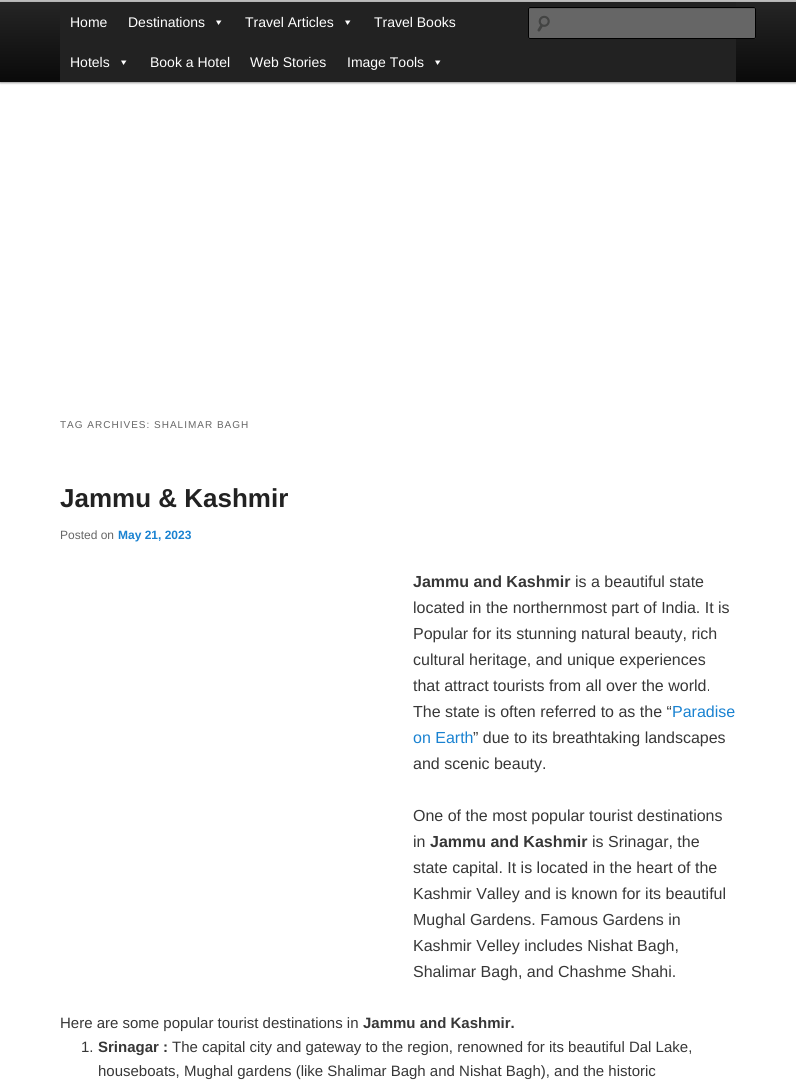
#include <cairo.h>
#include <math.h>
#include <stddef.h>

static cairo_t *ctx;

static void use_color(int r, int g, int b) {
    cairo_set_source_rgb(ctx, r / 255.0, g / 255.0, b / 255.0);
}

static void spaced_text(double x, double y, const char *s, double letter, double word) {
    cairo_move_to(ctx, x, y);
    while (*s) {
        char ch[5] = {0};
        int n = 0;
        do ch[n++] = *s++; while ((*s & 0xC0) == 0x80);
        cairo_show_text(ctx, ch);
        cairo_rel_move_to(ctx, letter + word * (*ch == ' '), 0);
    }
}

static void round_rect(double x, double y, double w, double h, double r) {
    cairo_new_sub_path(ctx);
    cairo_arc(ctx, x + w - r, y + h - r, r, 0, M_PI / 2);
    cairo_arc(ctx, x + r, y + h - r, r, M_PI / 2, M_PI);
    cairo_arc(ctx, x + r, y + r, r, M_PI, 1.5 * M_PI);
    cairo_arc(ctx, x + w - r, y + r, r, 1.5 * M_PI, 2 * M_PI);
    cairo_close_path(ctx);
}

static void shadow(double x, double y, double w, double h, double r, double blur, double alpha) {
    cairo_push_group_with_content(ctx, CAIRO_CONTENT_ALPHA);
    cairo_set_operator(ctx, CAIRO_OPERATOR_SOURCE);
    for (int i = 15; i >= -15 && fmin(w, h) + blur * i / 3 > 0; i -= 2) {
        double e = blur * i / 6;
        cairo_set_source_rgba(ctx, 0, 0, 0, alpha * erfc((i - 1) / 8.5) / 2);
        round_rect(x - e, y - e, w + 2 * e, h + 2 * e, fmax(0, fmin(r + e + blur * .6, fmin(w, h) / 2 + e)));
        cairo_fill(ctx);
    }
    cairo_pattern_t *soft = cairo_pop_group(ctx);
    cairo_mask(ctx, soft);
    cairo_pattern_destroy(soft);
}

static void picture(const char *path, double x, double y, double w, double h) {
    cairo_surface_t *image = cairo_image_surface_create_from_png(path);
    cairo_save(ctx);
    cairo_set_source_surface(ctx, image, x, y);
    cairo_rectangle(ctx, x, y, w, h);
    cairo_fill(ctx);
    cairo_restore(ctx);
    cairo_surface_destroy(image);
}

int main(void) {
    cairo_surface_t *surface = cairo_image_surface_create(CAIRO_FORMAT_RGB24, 796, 1089);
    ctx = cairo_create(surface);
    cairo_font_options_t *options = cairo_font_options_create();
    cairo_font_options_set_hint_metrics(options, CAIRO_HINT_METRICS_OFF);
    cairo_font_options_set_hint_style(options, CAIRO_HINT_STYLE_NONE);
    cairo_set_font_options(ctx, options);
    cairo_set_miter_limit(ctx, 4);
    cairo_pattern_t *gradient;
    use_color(255, 255, 255);
    cairo_paint(ctx);
    use_color(187, 187, 187);
    cairo_rectangle(ctx, 0, 0, 796, 2);
    cairo_fill(ctx);
    use_color(0, 0, 0);
    shadow(0, 3, 796, 80, 0, 1, 0.4);
    gradient = cairo_pattern_create_linear(398, 2, 398, 82);
    cairo_pattern_add_color_stop_rgba(gradient, 0, 0.145, 0.145, 0.145, 1);
    cairo_pattern_add_color_stop_rgba(gradient, 1, 0.039, 0.039, 0.039, 1);
    cairo_set_source(ctx, gradient);
    cairo_pattern_destroy(gradient);
    cairo_rectangle(ctx, 0, 2, 796, 80);
    cairo_fill(ctx);
    use_color(34, 34, 34);
    cairo_rectangle(ctx, 60, 2, 676, 80);
    cairo_fill(ctx);
    cairo_select_font_face(ctx, "Liberation Sans", CAIRO_FONT_SLANT_NORMAL, CAIRO_FONT_WEIGHT_NORMAL);
    cairo_set_font_size(ctx, 14);
    use_color(255, 255, 255);
    cairo_move_to(ctx, 70, 27);
    cairo_show_text(ctx, "Home");
    cairo_move_to(ctx, 128, 27);
    cairo_show_text(ctx, "Destinations");
    cairo_new_path(ctx);
    cairo_move_to(ctx, 221.5, 20.5);
    cairo_line_to(ctx, 218.5, 25);
    cairo_line_to(ctx, 216, 20.5);
    cairo_close_path(ctx);
    cairo_fill(ctx);
    cairo_move_to(ctx, 245, 27);
    cairo_show_text(ctx, "Travel Articles");
    cairo_new_path(ctx);
    cairo_move_to(ctx, 350.5, 20.5);
    cairo_line_to(ctx, 347.5, 25);
    cairo_line_to(ctx, 345, 20.5);
    cairo_close_path(ctx);
    cairo_fill(ctx);
    cairo_move_to(ctx, 374, 27);
    cairo_show_text(ctx, "Travel Books");
    cairo_move_to(ctx, 70, 67);
    cairo_show_text(ctx, "Hotels");
    cairo_new_path(ctx);
    cairo_move_to(ctx, 126.5, 60.5);
    cairo_line_to(ctx, 123.5, 65);
    cairo_line_to(ctx, 121, 60.5);
    cairo_close_path(ctx);
    cairo_fill(ctx);
    cairo_move_to(ctx, 150, 67);
    cairo_show_text(ctx, "Book a Hotel");
    cairo_move_to(ctx, 250, 67);
    cairo_show_text(ctx, "Web Stories");
    cairo_move_to(ctx, 347, 67);
    cairo_show_text(ctx, "Image Tools");
    cairo_new_path(ctx);
    cairo_move_to(ctx, 440.5, 60.5);
    cairo_line_to(ctx, 437.5, 65);
    cairo_line_to(ctx, 435, 60.5);
    cairo_close_path(ctx);
    cairo_fill(ctx);
    use_color(102, 102, 102);
    round_rect(528, 7, 228, 32, 2);
    cairo_fill(ctx);
    picture("img1.png", 537, 15, 13, 17);
    use_color(92, 92, 92);
    cairo_new_path(ctx);
    cairo_move_to(ctx, 530, 9);
    cairo_line_to(ctx, 755, 9);
    cairo_line_to(ctx, 755, 10);
    cairo_curve_to(ctx, 755, 9, 755, 8, 754, 8);
    cairo_line_to(ctx, 529, 8);
    cairo_line_to(ctx, 529, 10);
    cairo_curve_to(ctx, 529, 9, 529, 9, 530, 9);
    cairo_close_path(ctx);
    cairo_fill(ctx);
    round_rect(528.5, 7.5, 227, 31, 1.5);
    use_color(0, 0, 0);
    cairo_set_line_width(ctx, 1);
    cairo_stroke(ctx);
    cairo_set_font_size(ctx, 10);
    use_color(102, 102, 102);
    spaced_text(60, 428, "TAG ARCHIVES: SHALIMAR BAGH", 1, 0);
    cairo_select_font_face(ctx, "Liberation Sans", CAIRO_FONT_SLANT_NORMAL, CAIRO_FONT_WEIGHT_BOLD);
    cairo_set_font_size(ctx, 26);
    use_color(34, 34, 34);
    cairo_move_to(ctx, 60, 507);
    cairo_show_text(ctx, "Jammu & Kashmir");
    cairo_select_font_face(ctx, "Liberation Sans", CAIRO_FONT_SLANT_NORMAL, CAIRO_FONT_WEIGHT_NORMAL);
    cairo_set_font_size(ctx, 12);
    use_color(102, 102, 102);
    cairo_move_to(ctx, 60, 539);
    cairo_show_text(ctx, "Posted on");
    cairo_select_font_face(ctx, "Liberation Sans", CAIRO_FONT_SLANT_NORMAL, CAIRO_FONT_WEIGHT_BOLD);
    use_color(25, 130, 209);
    cairo_move_to(ctx, 118, 539);
    cairo_show_text(ctx, "May 21, 2023");
    cairo_set_font_size(ctx, 16);
    use_color(55, 55, 55);
    cairo_move_to(ctx, 413, 587);
    cairo_show_text(ctx, "Jammu and Kashmir");
    cairo_select_font_face(ctx, "Liberation Sans", CAIRO_FONT_SLANT_NORMAL, CAIRO_FONT_WEIGHT_NORMAL);
    cairo_move_to(ctx, 575, 587);
    cairo_show_text(ctx, "is a beautiful state");
    cairo_move_to(ctx, 413, 613);
    cairo_show_text(ctx, "located in the northernmost part of India. It is");
    cairo_move_to(ctx, 413, 639);
    cairo_show_text(ctx, "Popular for its stunning natural beauty, rich");
    cairo_move_to(ctx, 413, 665);
    cairo_show_text(ctx, "cultural heritage, and unique experiences");
    cairo_move_to(ctx, 413, 691);
    cairo_show_text(ctx, "that attract tourists from all over the world.");
    cairo_move_to(ctx, 413, 717);
    cairo_show_text(ctx, "The state is often referred to as the “");
    use_color(25, 130, 209);
    cairo_move_to(ctx, 672, 717);
    cairo_show_text(ctx, "Paradise");
    cairo_move_to(ctx, 413, 743);
    cairo_show_text(ctx, "on Earth");
    use_color(55, 55, 55);
    cairo_move_to(ctx, 473, 743);
    cairo_show_text(ctx, "” due to its breathtaking landscapes");
    cairo_move_to(ctx, 413, 769);
    cairo_show_text(ctx, "and scenic beauty.");
    cairo_move_to(ctx, 413, 821);
    cairo_show_text(ctx, "One of the most popular tourist destinations");
    cairo_move_to(ctx, 413, 847);
    cairo_show_text(ctx, "in");
    cairo_select_font_face(ctx, "Liberation Sans", CAIRO_FONT_SLANT_NORMAL, CAIRO_FONT_WEIGHT_BOLD);
    cairo_move_to(ctx, 430, 847);
    cairo_show_text(ctx, "Jammu and Kashmir");
    cairo_select_font_face(ctx, "Liberation Sans", CAIRO_FONT_SLANT_NORMAL, CAIRO_FONT_WEIGHT_NORMAL);
    cairo_move_to(ctx, 592, 847);
    cairo_show_text(ctx, "is Srinagar, the");
    cairo_move_to(ctx, 413, 873);
    cairo_show_text(ctx, "state capital. It is located in the heart of the");
    cairo_move_to(ctx, 413, 899);
    cairo_show_text(ctx, "Kashmir Valley and is known for its beautiful");
    cairo_move_to(ctx, 413, 925);
    cairo_show_text(ctx, "Mughal Gardens. Famous Gardens in");
    cairo_move_to(ctx, 413, 951);
    cairo_show_text(ctx, "Kashmir Velley includes Nishat Bagh,");
    cairo_move_to(ctx, 413, 977);
    cairo_show_text(ctx, "Shalimar Bagh, and Chashme Shahi.");
    cairo_set_font_size(ctx, 15);
    cairo_move_to(ctx, 60, 1028);
    cairo_show_text(ctx, "Here are some popular tourist destinations in");
    cairo_select_font_face(ctx, "Liberation Sans", CAIRO_FONT_SLANT_NORMAL, CAIRO_FONT_WEIGHT_BOLD);
    cairo_move_to(ctx, 363, 1028);
    cairo_show_text(ctx, "Jammu and Kashmir.");
    cairo_select_font_face(ctx, "Liberation Sans", CAIRO_FONT_SLANT_NORMAL, CAIRO_FONT_WEIGHT_NORMAL);
    cairo_move_to(ctx, 81, 1052);
    cairo_show_text(ctx, "1.");
    cairo_select_font_face(ctx, "Liberation Sans", CAIRO_FONT_SLANT_NORMAL, CAIRO_FONT_WEIGHT_BOLD);
    cairo_move_to(ctx, 98, 1052);
    cairo_show_text(ctx, "Srinagar :");
    cairo_select_font_face(ctx, "Liberation Sans", CAIRO_FONT_SLANT_NORMAL, CAIRO_FONT_WEIGHT_NORMAL);
    cairo_move_to(ctx, 172, 1052);
    cairo_show_text(ctx, "The capital city and gateway to the region, renowned for its beautiful Dal Lake,");
    cairo_move_to(ctx, 98, 1076);
    cairo_show_text(ctx, "houseboats, Mughal gardens (like Shalimar Bagh and Nishat Bagh), and the historic");
    cairo_surface_write_to_png(surface, "result.png");
    cairo_font_options_destroy(options);
    cairo_destroy(ctx);
    cairo_surface_destroy(surface);
    return 0;
}
